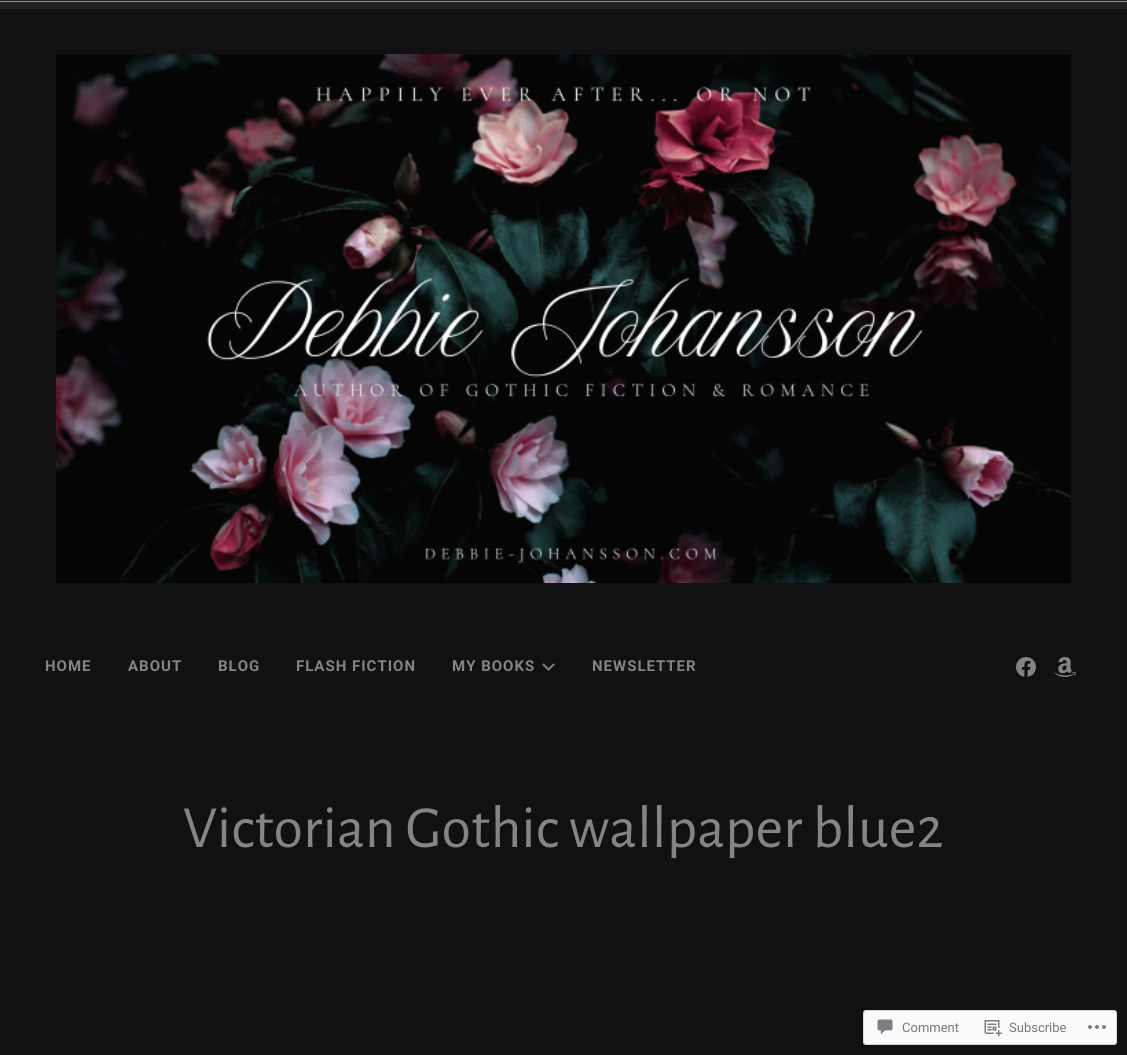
#include <cairo.h>
#include <math.h>
#include <stddef.h>

static cairo_t *ctx;

static void use_color(int r, int g, int b) {
    cairo_set_source_rgb(ctx, r / 255.0, g / 255.0, b / 255.0);
}

static void spaced_text(double x, double y, const char *s, double letter, double word) {
    cairo_move_to(ctx, x, y);
    while (*s) {
        char ch[5] = {0};
        int n = 0;
        do ch[n++] = *s++; while ((*s & 0xC0) == 0x80);
        cairo_show_text(ctx, ch);
        cairo_rel_move_to(ctx, letter + word * (*ch == ' '), 0);
    }
}

static void round_rect(double x, double y, double w, double h, double r) {
    cairo_new_sub_path(ctx);
    cairo_arc(ctx, x + w - r, y + h - r, r, 0, M_PI / 2);
    cairo_arc(ctx, x + r, y + h - r, r, M_PI / 2, M_PI);
    cairo_arc(ctx, x + r, y + r, r, M_PI, 1.5 * M_PI);
    cairo_arc(ctx, x + w - r, y + r, r, 1.5 * M_PI, 2 * M_PI);
    cairo_close_path(ctx);
}

static void picture(const char *path, double x, double y, double w, double h) {
    cairo_surface_t *image = cairo_image_surface_create_from_png(path);
    cairo_save(ctx);
    cairo_set_source_surface(ctx, image, x, y);
    cairo_rectangle(ctx, x, y, w, h);
    cairo_fill(ctx);
    cairo_restore(ctx);
    cairo_surface_destroy(image);
}

int main(void) {
    cairo_surface_t *surface = cairo_image_surface_create(CAIRO_FORMAT_RGB24, 1127, 1055);
    ctx = cairo_create(surface);
    cairo_font_options_t *options = cairo_font_options_create();
    cairo_font_options_set_hint_metrics(options, CAIRO_HINT_METRICS_OFF);
    cairo_font_options_set_hint_style(options, CAIRO_HINT_STYLE_NONE);
    cairo_set_font_options(ctx, options);
    cairo_set_miter_limit(ctx, 4);
    use_color(17, 17, 17);
    cairo_paint(ctx);
    use_color(34, 34, 34);
    cairo_rectangle(ctx, 0, 0, 1127, 9);
    cairo_fill(ctx);
    use_color(14, 14, 14);
    cairo_rectangle(ctx, 0, 720, 1127, 1);
    cairo_fill(ctx);
    use_color(145, 145, 145);
    cairo_rectangle(ctx, 0, 1, 1127, 1);
    cairo_fill(ctx);
    picture("img1.png", 56, 54, 1015, 529);
    cairo_select_font_face(ctx, "Roboto", CAIRO_FONT_SLANT_NORMAL, CAIRO_FONT_WEIGHT_BOLD);
    cairo_set_font_size(ctx, 15);
    use_color(132, 132, 132);
    spaced_text(45, 671, "HOME", 1, 0);
    spaced_text(128, 671, "ABOUT", 1, 0);
    spaced_text(218, 671, "BLOG", 1, 0);
    spaced_text(296, 671, "FLASH FICTION", 1, 0);
    spaced_text(452, 671, "MY BOOKS", 1, 0);
    picture("img2.png", 542, 663, 13, 8);
    spaced_text(592, 671, "NEWSLETTER", 1, 0);
    picture("img3.png", 1016, 657, 20, 20);
    picture("img4.png", 1054, 657, 22, 20);
    cairo_select_font_face(ctx, "Alegreya Sans", CAIRO_FONT_SLANT_NORMAL, CAIRO_FONT_WEIGHT_NORMAL);
    cairo_set_font_size(ctx, 60);
    cairo_move_to(ctx, 183, 847);
    cairo_show_text(ctx, "Victorian Gothic wallpaper blue2");
    use_color(250, 250, 250);
    round_rect(863.5, 1010.5, 253, 34, 2.5);
    cairo_fill_preserve(ctx);
    use_color(216, 216, 218);
    cairo_set_line_width(ctx, 1);
    cairo_stroke(ctx);
    picture("img5.png", 877, 1019, 16, 16);
    cairo_select_font_face(ctx, "Roboto", CAIRO_FONT_SLANT_NORMAL, CAIRO_FONT_WEIGHT_NORMAL);
    cairo_set_font_size(ctx, 13);
    use_color(118, 122, 128);
    cairo_move_to(ctx, 902, 1032);
    cairo_show_text(ctx, "Comment");
    picture("img6.png", 984, 1020, 18, 17);
    cairo_move_to(ctx, 1009, 1032);
    cairo_show_text(ctx, "Subscribe");
    picture("img7.png", 1088, 1025, 18, 4);
    cairo_surface_write_to_png(surface, "result.png");
    cairo_font_options_destroy(options);
    cairo_destroy(ctx);
    cairo_surface_destroy(surface);
    return 0;
}
